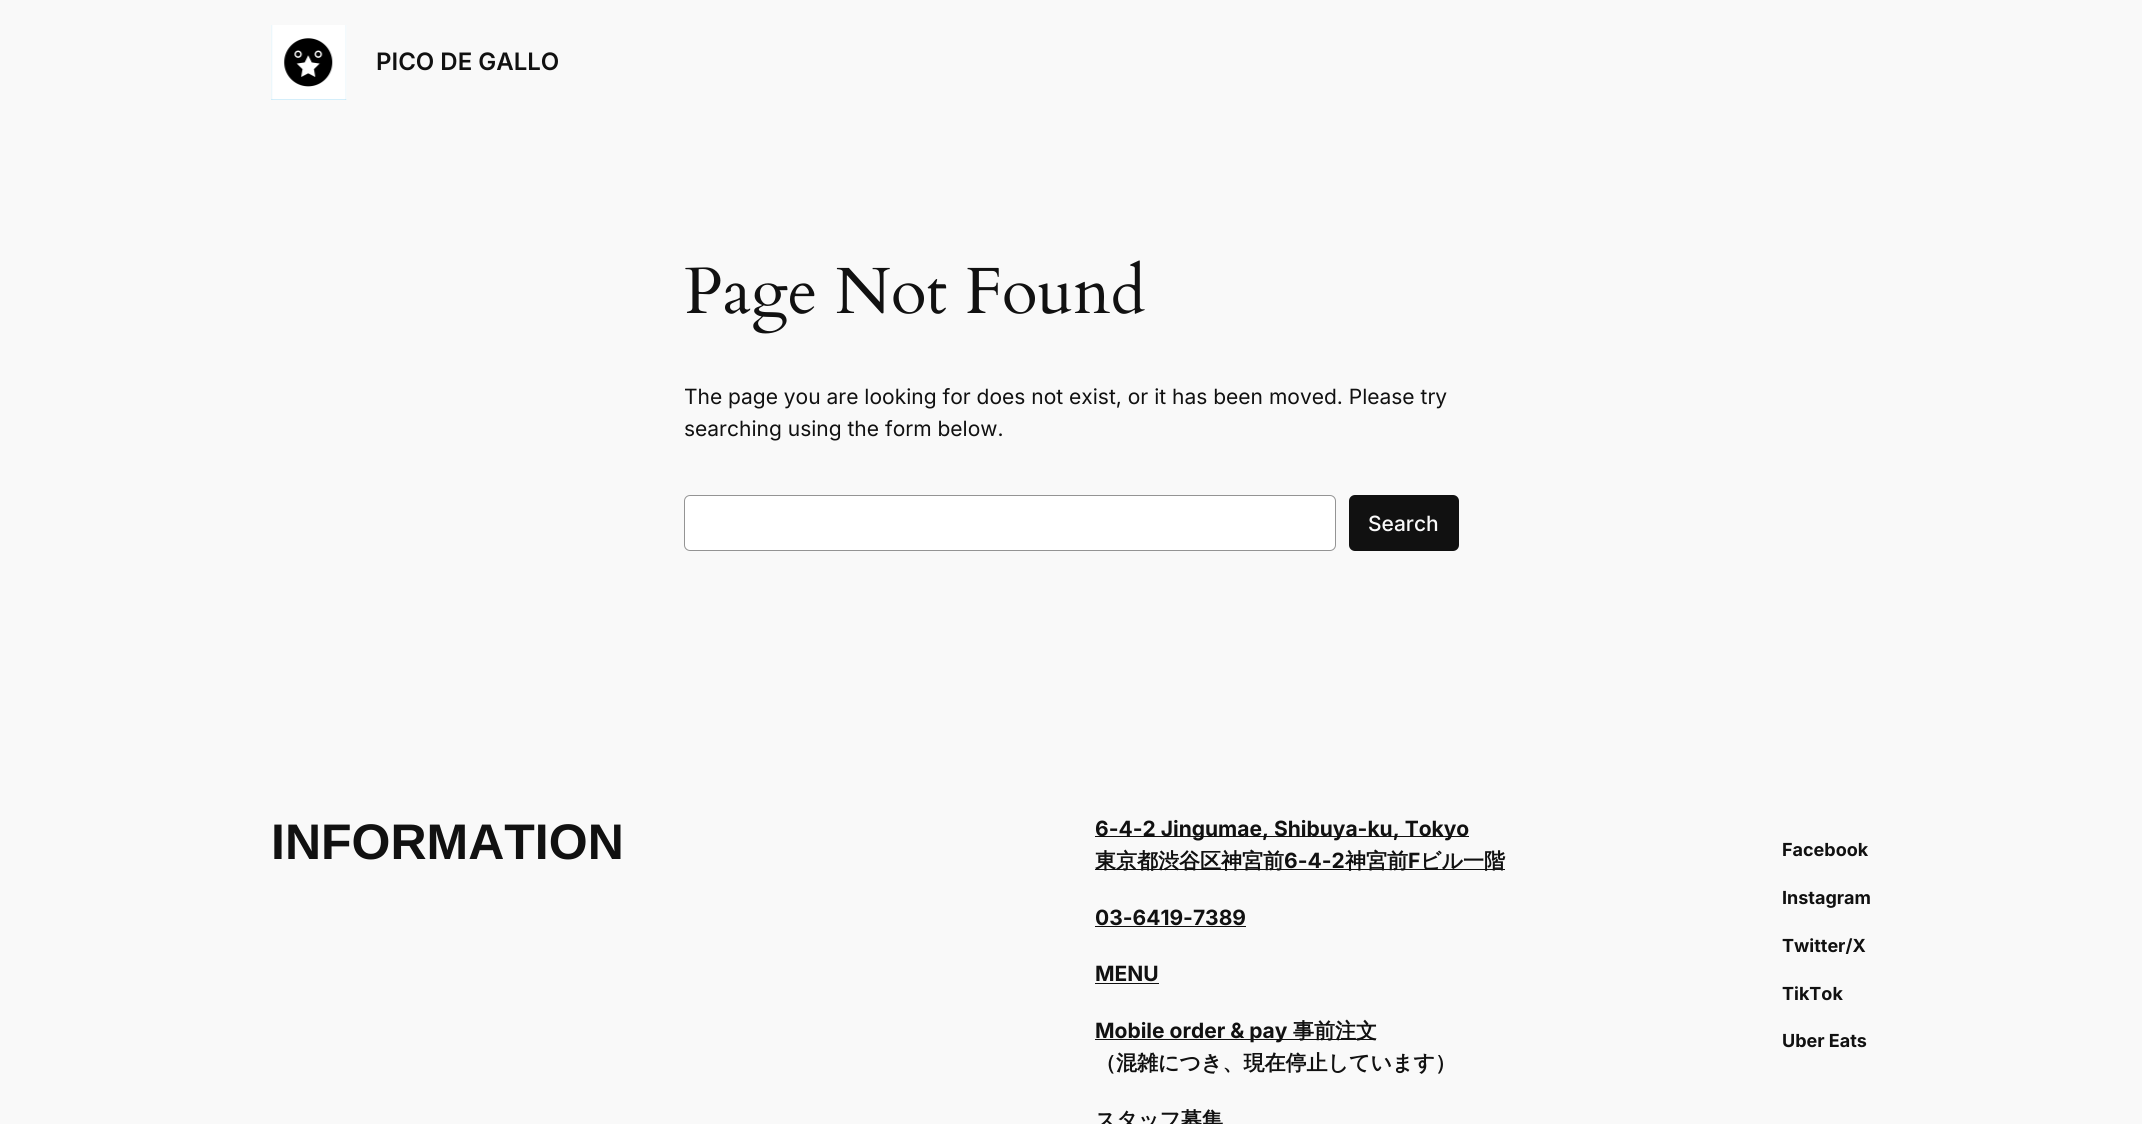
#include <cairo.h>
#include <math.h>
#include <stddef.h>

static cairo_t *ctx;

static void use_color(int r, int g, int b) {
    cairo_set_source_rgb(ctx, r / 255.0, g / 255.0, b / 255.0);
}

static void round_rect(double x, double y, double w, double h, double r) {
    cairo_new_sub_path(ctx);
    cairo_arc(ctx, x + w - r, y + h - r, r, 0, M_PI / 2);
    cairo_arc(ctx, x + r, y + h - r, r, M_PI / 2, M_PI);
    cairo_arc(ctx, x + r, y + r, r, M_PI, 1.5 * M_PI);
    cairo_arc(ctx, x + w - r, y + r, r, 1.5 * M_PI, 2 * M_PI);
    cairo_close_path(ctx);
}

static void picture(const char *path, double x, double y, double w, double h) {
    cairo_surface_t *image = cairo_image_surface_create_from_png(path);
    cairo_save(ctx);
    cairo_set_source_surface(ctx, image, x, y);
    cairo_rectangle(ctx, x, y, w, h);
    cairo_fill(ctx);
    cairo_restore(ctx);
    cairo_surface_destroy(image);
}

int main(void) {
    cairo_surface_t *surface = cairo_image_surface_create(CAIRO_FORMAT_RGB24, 2142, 1124);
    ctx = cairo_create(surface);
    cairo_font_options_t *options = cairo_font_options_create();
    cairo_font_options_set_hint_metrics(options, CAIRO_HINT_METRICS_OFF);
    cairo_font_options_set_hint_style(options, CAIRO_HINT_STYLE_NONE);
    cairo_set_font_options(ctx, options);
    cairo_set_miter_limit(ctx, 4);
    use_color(249, 249, 249);
    cairo_paint(ctx);
    picture("img1.png", 271, 25, 76, 75);
    cairo_select_font_face(ctx, "Inter SemiBold", CAIRO_FONT_SLANT_NORMAL, CAIRO_FONT_WEIGHT_NORMAL);
    cairo_set_font_size(ctx, 24);
    use_color(17, 17, 17);
    cairo_move_to(ctx, 376, 70);
    cairo_show_text(ctx, "PICO DE GALLO");
    cairo_select_font_face(ctx, "Cardo", CAIRO_FONT_SLANT_NORMAL, CAIRO_FONT_WEIGHT_NORMAL);
    cairo_set_font_size(ctx, 65.5);
    cairo_move_to(ctx, 684, 313);
    cairo_show_text(ctx, "Page Not Found");
    cairo_select_font_face(ctx, "Inter", CAIRO_FONT_SLANT_NORMAL, CAIRO_FONT_WEIGHT_NORMAL);
    cairo_set_font_size(ctx, 21);
    cairo_move_to(ctx, 684, 404);
    cairo_show_text(ctx, "The page you are looking for does not exist, or it has been moved. Please try");
    cairo_move_to(ctx, 684, 436);
    cairo_show_text(ctx, "searching using the form below.");
    use_color(255, 255, 255);
    round_rect(684.5, 495.5, 651, 55, 5.5);
    cairo_fill_preserve(ctx);
    use_color(148, 148, 148);
    cairo_set_line_width(ctx, 1);
    cairo_stroke(ctx);
    use_color(17, 17, 17);
    round_rect(1349, 495, 110, 56, 6);
    cairo_fill(ctx);
    cairo_select_font_face(ctx, "Inter Medium", CAIRO_FONT_SLANT_NORMAL, CAIRO_FONT_WEIGHT_NORMAL);
    use_color(249, 249, 249);
    cairo_move_to(ctx, 1368, 531);
    cairo_show_text(ctx, "Search");
    cairo_select_font_face(ctx, "Liberation Sans", CAIRO_FONT_SLANT_NORMAL, CAIRO_FONT_WEIGHT_BOLD);
    cairo_set_font_size(ctx, 50);
    use_color(17, 17, 17);
    cairo_move_to(ctx, 271, 859);
    cairo_show_text(ctx, "INFORMATION");
    cairo_rectangle(ctx, 1095, 836, 374, 1);
    cairo_fill(ctx);
    cairo_select_font_face(ctx, "Inter", CAIRO_FONT_SLANT_NORMAL, CAIRO_FONT_WEIGHT_BOLD);
    cairo_set_font_size(ctx, 21);
    cairo_move_to(ctx, 1095, 836);
    cairo_show_text(ctx, "6-4-2 Jingumae, Shibuya-ku, Tokyo");
    cairo_rectangle(ctx, 1095, 869, 410, 1);
    cairo_fill(ctx);
    cairo_select_font_face(ctx, "WenQuanYi Zen Hei", CAIRO_FONT_SLANT_NORMAL, CAIRO_FONT_WEIGHT_BOLD);
    cairo_move_to(ctx, 1095, 868);
    cairo_show_text(ctx, "東京都渋谷区神宮前");
    cairo_select_font_face(ctx, "Inter", CAIRO_FONT_SLANT_NORMAL, CAIRO_FONT_WEIGHT_BOLD);
    cairo_move_to(ctx, 1284, 868);
    cairo_show_text(ctx, "6-4-2");
    cairo_select_font_face(ctx, "WenQuanYi Zen Hei", CAIRO_FONT_SLANT_NORMAL, CAIRO_FONT_WEIGHT_BOLD);
    cairo_move_to(ctx, 1345, 868);
    cairo_show_text(ctx, "神宮前");
    cairo_select_font_face(ctx, "Inter", CAIRO_FONT_SLANT_NORMAL, CAIRO_FONT_WEIGHT_BOLD);
    cairo_move_to(ctx, 1408, 868);
    cairo_show_text(ctx, "F");
    cairo_select_font_face(ctx, "WenQuanYi Zen Hei", CAIRO_FONT_SLANT_NORMAL, CAIRO_FONT_WEIGHT_BOLD);
    cairo_move_to(ctx, 1420, 868);
    cairo_show_text(ctx, "ビル一階");
    cairo_select_font_face(ctx, "Inter", CAIRO_FONT_SLANT_NORMAL, CAIRO_FONT_WEIGHT_BOLD);
    cairo_move_to(ctx, 1095, 925);
    cairo_show_text(ctx, "03-6419-7389");
    cairo_rectangle(ctx, 1095, 926, 151, 1);
    cairo_fill(ctx);
    cairo_move_to(ctx, 1095, 981);
    cairo_show_text(ctx, "MENU");
    cairo_rectangle(ctx, 1095, 983, 64, 1);
    cairo_fill(ctx);
    cairo_rectangle(ctx, 1095, 1039, 281, 1);
    cairo_fill(ctx);
    cairo_move_to(ctx, 1095, 1038);
    cairo_show_text(ctx, "Mobile order & pay");
    cairo_select_font_face(ctx, "WenQuanYi Zen Hei", CAIRO_FONT_SLANT_NORMAL, CAIRO_FONT_WEIGHT_BOLD);
    cairo_move_to(ctx, 1293, 1038);
    cairo_show_text(ctx, "事前注文");
    cairo_move_to(ctx, 1095, 1070);
    cairo_show_text(ctx, "（混雑につき、現在停止しています）");
    cairo_move_to(ctx, 1095, 1127);
    cairo_show_text(ctx, "スタッフ募集");
    cairo_select_font_face(ctx, "Inter", CAIRO_FONT_SLANT_NORMAL, CAIRO_FONT_WEIGHT_BOLD);
    cairo_set_font_size(ctx, 18);
    cairo_move_to(ctx, 1782, 856);
    cairo_show_text(ctx, "Facebook");
    cairo_move_to(ctx, 1782, 904);
    cairo_show_text(ctx, "Instagram");
    cairo_move_to(ctx, 1782, 952);
    cairo_show_text(ctx, "Twitter/X");
    cairo_move_to(ctx, 1782, 1000);
    cairo_show_text(ctx, "TikTok");
    cairo_move_to(ctx, 1782, 1047);
    cairo_show_text(ctx, "Uber Eats");
    cairo_surface_write_to_png(surface, "result.png");
    cairo_font_options_destroy(options);
    cairo_destroy(ctx);
    cairo_surface_destroy(surface);
    return 0;
}
